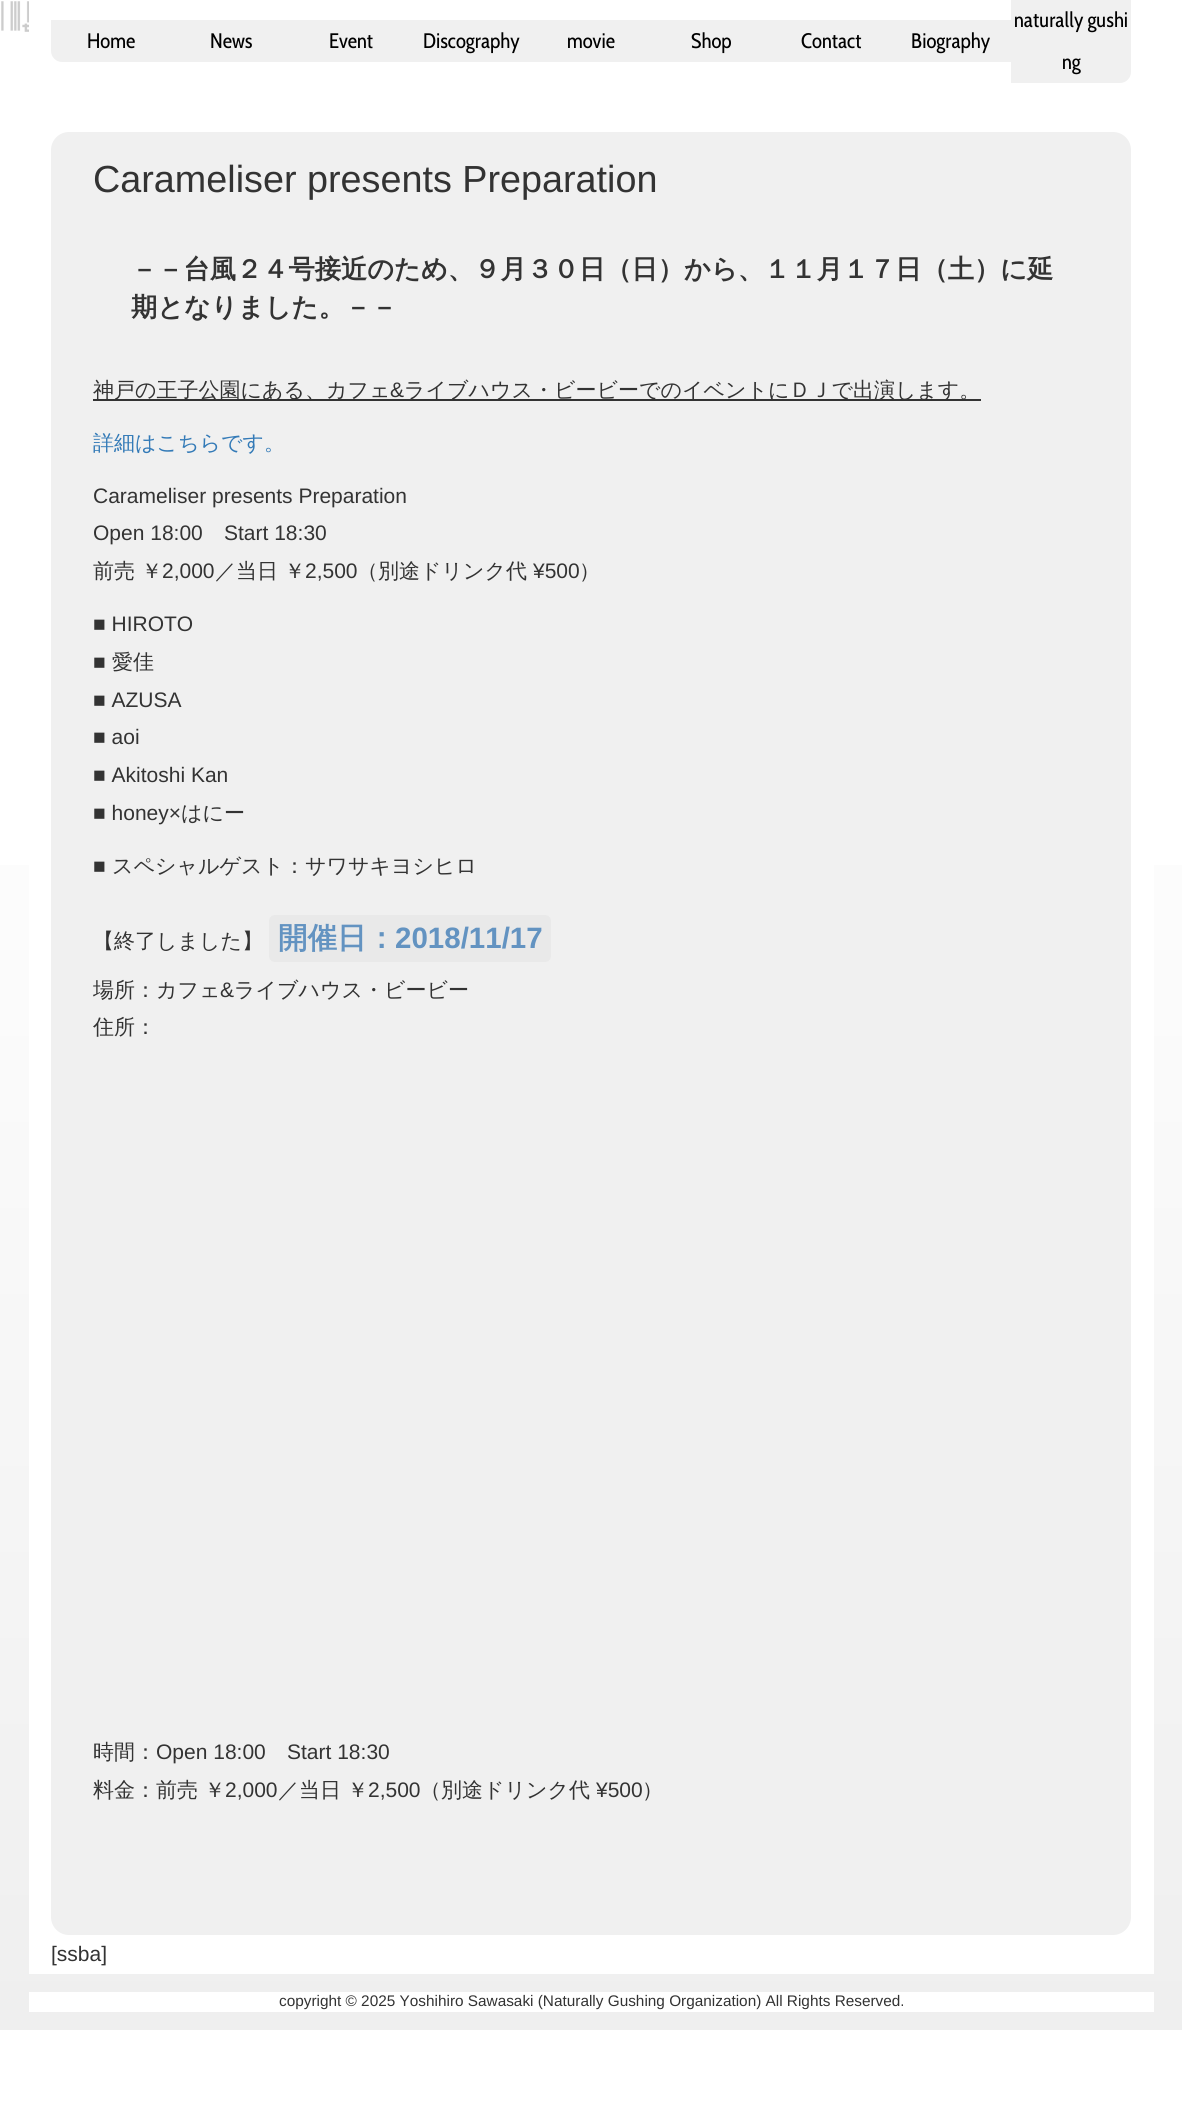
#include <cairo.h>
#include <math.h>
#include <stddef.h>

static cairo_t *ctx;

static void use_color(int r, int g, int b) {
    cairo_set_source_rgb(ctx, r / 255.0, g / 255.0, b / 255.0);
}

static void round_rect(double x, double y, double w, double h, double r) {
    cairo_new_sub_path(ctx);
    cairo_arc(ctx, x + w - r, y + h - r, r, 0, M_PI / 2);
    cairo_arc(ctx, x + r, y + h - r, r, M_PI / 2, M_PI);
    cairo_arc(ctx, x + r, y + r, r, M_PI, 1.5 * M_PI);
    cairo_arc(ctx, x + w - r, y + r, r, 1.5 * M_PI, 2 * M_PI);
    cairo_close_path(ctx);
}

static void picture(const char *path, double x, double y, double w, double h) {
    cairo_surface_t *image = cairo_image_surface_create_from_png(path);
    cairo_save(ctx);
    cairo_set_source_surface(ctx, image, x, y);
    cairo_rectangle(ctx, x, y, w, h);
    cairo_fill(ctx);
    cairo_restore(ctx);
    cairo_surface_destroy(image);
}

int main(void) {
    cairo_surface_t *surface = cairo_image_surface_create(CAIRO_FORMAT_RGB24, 1182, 2126);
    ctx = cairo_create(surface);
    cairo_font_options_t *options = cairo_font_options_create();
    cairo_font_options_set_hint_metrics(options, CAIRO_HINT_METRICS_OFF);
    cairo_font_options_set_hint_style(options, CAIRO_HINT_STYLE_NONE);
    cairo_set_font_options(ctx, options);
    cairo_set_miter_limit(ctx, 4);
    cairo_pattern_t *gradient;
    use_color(255, 255, 255);
    cairo_paint(ctx);
    gradient = cairo_pattern_create_linear(591, 0, 591, 2030);
    cairo_pattern_add_color_stop_rgba(gradient, 0.32, 1, 1, 1, 1);
    cairo_pattern_add_color_stop_rgba(gradient, 1, 0.937, 0.937, 0.937, 1);
    cairo_set_source(ctx, gradient);
    cairo_pattern_destroy(gradient);
    cairo_rectangle(ctx, 0, 865, 1182, 1165);
    cairo_fill(ctx);
    picture("img1.png", 1, 1, 28, 31);
    use_color(240, 240, 240);
    cairo_new_path(ctx);
    cairo_move_to(ctx, 51, 20);
    cairo_line_to(ctx, 171, 20);
    cairo_line_to(ctx, 171, 62);
    cairo_line_to(ctx, 62, 62);
    cairo_curve_to(ctx, 56, 62, 51, 57, 51, 51);
    cairo_close_path(ctx);
    cairo_fill(ctx);
    cairo_select_font_face(ctx, "Cabin Condensed", CAIRO_FONT_SLANT_NORMAL, CAIRO_FONT_WEIGHT_NORMAL);
    cairo_set_font_size(ctx, 21);
    use_color(0, 0, 0);
    cairo_move_to(ctx, 87, 48);
    cairo_show_text(ctx, "Home");
    use_color(240, 240, 240);
    cairo_rectangle(ctx, 171, 20, 840, 42);
    cairo_fill(ctx);
    use_color(0, 0, 0);
    cairo_move_to(ctx, 210, 48);
    cairo_show_text(ctx, "News");
    cairo_move_to(ctx, 329, 48);
    cairo_show_text(ctx, "Event");
    cairo_move_to(ctx, 423, 48);
    cairo_show_text(ctx, "Discography");
    cairo_move_to(ctx, 567, 48);
    cairo_show_text(ctx, "movie");
    cairo_move_to(ctx, 691, 48);
    cairo_show_text(ctx, "Shop");
    cairo_move_to(ctx, 801, 48);
    cairo_show_text(ctx, "Contact");
    cairo_move_to(ctx, 911, 48);
    cairo_show_text(ctx, "Biography");
    use_color(240, 240, 240);
    cairo_new_path(ctx);
    cairo_move_to(ctx, 1011, -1);
    cairo_line_to(ctx, 1131, -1);
    cairo_line_to(ctx, 1131, 72);
    cairo_curve_to(ctx, 1131, 78, 1126, 83, 1120, 83);
    cairo_line_to(ctx, 1011, 83);
    cairo_close_path(ctx);
    cairo_fill(ctx);
    use_color(0, 0, 0);
    cairo_move_to(ctx, 1014, 27);
    cairo_show_text(ctx, "naturally gushi");
    cairo_move_to(ctx, 1062, 69);
    cairo_show_text(ctx, "ng");
    use_color(255, 255, 255);
    cairo_rectangle(ctx, 29, 865, 1125, 1109);
    cairo_fill(ctx);
    use_color(240, 240, 240);
    round_rect(51, 132, 1080, 1803, 18);
    cairo_fill(ctx);
    cairo_select_font_face(ctx, "Liberation Sans", CAIRO_FONT_SLANT_NORMAL, CAIRO_FONT_WEIGHT_NORMAL);
    cairo_set_font_size(ctx, 37.75);
    use_color(51, 51, 51);
    cairo_move_to(ctx, 93, 192);
    cairo_show_text(ctx, "Carameliser presents Preparation");
    cairo_select_font_face(ctx, "WenQuanYi Zen Hei", CAIRO_FONT_SLANT_NORMAL, CAIRO_FONT_WEIGHT_BOLD);
    cairo_set_font_size(ctx, 26.25);
    cairo_move_to(ctx, 131, 278);
    cairo_show_text(ctx, "－－台風２４号接近のため、９月３０日（日）から、１１月１７日（土）に延");
    cairo_move_to(ctx, 131, 316);
    cairo_show_text(ctx, "期となりました。－－");
    cairo_rectangle(ctx, 93, 399, 888, 2);
    cairo_fill(ctx);
    cairo_select_font_face(ctx, "WenQuanYi Zen Hei Medium", CAIRO_FONT_SLANT_NORMAL, CAIRO_FONT_WEIGHT_NORMAL);
    cairo_set_font_size(ctx, 21);
    cairo_move_to(ctx, 93, 397);
    cairo_show_text(ctx, "神戸の王子公園にある、カフェ");
    cairo_select_font_face(ctx, "Liberation Sans", CAIRO_FONT_SLANT_NORMAL, CAIRO_FONT_WEIGHT_NORMAL);
    cairo_move_to(ctx, 390, 397);
    cairo_show_text(ctx, "&");
    cairo_select_font_face(ctx, "WenQuanYi Zen Hei Medium", CAIRO_FONT_SLANT_NORMAL, CAIRO_FONT_WEIGHT_NORMAL);
    cairo_move_to(ctx, 404, 397);
    cairo_show_text(ctx, "ライブハウス・ビービーでのイベントにＤＪで出演します。");
    use_color(51, 122, 183);
    cairo_move_to(ctx, 93, 450);
    cairo_show_text(ctx, "詳細はこちらです。");
    cairo_select_font_face(ctx, "Liberation Sans", CAIRO_FONT_SLANT_NORMAL, CAIRO_FONT_WEIGHT_NORMAL);
    use_color(51, 51, 51);
    cairo_move_to(ctx, 93, 503);
    cairo_show_text(ctx, "Carameliser presents Preparation");
    cairo_move_to(ctx, 93, 540);
    cairo_show_text(ctx, "Open 18:00");
    cairo_move_to(ctx, 224, 540);
    cairo_show_text(ctx, "Start 18:30");
    cairo_select_font_face(ctx, "WenQuanYi Zen Hei Medium", CAIRO_FONT_SLANT_NORMAL, CAIRO_FONT_WEIGHT_NORMAL);
    cairo_move_to(ctx, 93, 578);
    cairo_show_text(ctx, "前売 ￥");
    cairo_select_font_face(ctx, "Liberation Sans", CAIRO_FONT_SLANT_NORMAL, CAIRO_FONT_WEIGHT_NORMAL);
    cairo_move_to(ctx, 162, 578);
    cairo_show_text(ctx, "2,000");
    cairo_select_font_face(ctx, "WenQuanYi Zen Hei Medium", CAIRO_FONT_SLANT_NORMAL, CAIRO_FONT_WEIGHT_NORMAL);
    cairo_move_to(ctx, 215, 578);
    cairo_show_text(ctx, "／当日 ￥");
    cairo_select_font_face(ctx, "Liberation Sans", CAIRO_FONT_SLANT_NORMAL, CAIRO_FONT_WEIGHT_NORMAL);
    cairo_move_to(ctx, 305, 578);
    cairo_show_text(ctx, "2,500");
    cairo_select_font_face(ctx, "WenQuanYi Zen Hei Medium", CAIRO_FONT_SLANT_NORMAL, CAIRO_FONT_WEIGHT_NORMAL);
    cairo_move_to(ctx, 357, 578);
    cairo_show_text(ctx, "（別途ドリンク代");
    cairo_select_font_face(ctx, "Liberation Sans", CAIRO_FONT_SLANT_NORMAL, CAIRO_FONT_WEIGHT_NORMAL);
    cairo_move_to(ctx, 533, 578);
    cairo_show_text(ctx, "¥500");
    cairo_select_font_face(ctx, "WenQuanYi Zen Hei Medium", CAIRO_FONT_SLANT_NORMAL, CAIRO_FONT_WEIGHT_NORMAL);
    cairo_move_to(ctx, 579, 578);
    cairo_show_text(ctx, "）");
    cairo_select_font_face(ctx, "Liberation Sans", CAIRO_FONT_SLANT_NORMAL, CAIRO_FONT_WEIGHT_NORMAL);
    cairo_move_to(ctx, 93, 631);
    cairo_show_text(ctx, "■ HIROTO");
    cairo_move_to(ctx, 93, 669);
    cairo_show_text(ctx, "■");
    cairo_select_font_face(ctx, "WenQuanYi Zen Hei Medium", CAIRO_FONT_SLANT_NORMAL, CAIRO_FONT_WEIGHT_NORMAL);
    cairo_move_to(ctx, 112, 669);
    cairo_show_text(ctx, "愛佳");
    cairo_select_font_face(ctx, "Liberation Sans", CAIRO_FONT_SLANT_NORMAL, CAIRO_FONT_WEIGHT_NORMAL);
    cairo_move_to(ctx, 93, 707);
    cairo_show_text(ctx, "■ AZUSA");
    cairo_move_to(ctx, 93, 744);
    cairo_show_text(ctx, "■ aoi");
    cairo_move_to(ctx, 93, 782);
    cairo_show_text(ctx, "■ Akitoshi Kan");
    cairo_move_to(ctx, 93, 820);
    cairo_show_text(ctx, "■ honey×");
    cairo_select_font_face(ctx, "WenQuanYi Zen Hei Medium", CAIRO_FONT_SLANT_NORMAL, CAIRO_FONT_WEIGHT_NORMAL);
    cairo_move_to(ctx, 181, 820);
    cairo_show_text(ctx, "はにー");
    cairo_select_font_face(ctx, "Liberation Sans", CAIRO_FONT_SLANT_NORMAL, CAIRO_FONT_WEIGHT_NORMAL);
    cairo_move_to(ctx, 93, 873);
    cairo_show_text(ctx, "■");
    cairo_select_font_face(ctx, "WenQuanYi Zen Hei Medium", CAIRO_FONT_SLANT_NORMAL, CAIRO_FONT_WEIGHT_NORMAL);
    cairo_move_to(ctx, 112, 873);
    cairo_show_text(ctx, "スペシャルゲスト：サワサキヨシヒロ");
    cairo_move_to(ctx, 93, 948);
    cairo_show_text(ctx, "【終了しました】");
    use_color(233, 233, 233);
    round_rect(269, 915, 282, 47, 6);
    cairo_fill(ctx);
    cairo_select_font_face(ctx, "WenQuanYi Zen Hei", CAIRO_FONT_SLANT_NORMAL, CAIRO_FONT_WEIGHT_BOLD);
    cairo_set_font_size(ctx, 29.5);
    use_color(99, 147, 193);
    cairo_move_to(ctx, 278, 948);
    cairo_show_text(ctx, "開催日：");
    cairo_select_font_face(ctx, "Liberation Sans", CAIRO_FONT_SLANT_NORMAL, CAIRO_FONT_WEIGHT_BOLD);
    cairo_move_to(ctx, 395, 948);
    cairo_show_text(ctx, "2018/11/17");
    cairo_select_font_face(ctx, "WenQuanYi Zen Hei Medium", CAIRO_FONT_SLANT_NORMAL, CAIRO_FONT_WEIGHT_NORMAL);
    cairo_set_font_size(ctx, 21);
    use_color(51, 51, 51);
    cairo_move_to(ctx, 93, 997);
    cairo_show_text(ctx, "場所：カフェ");
    cairo_select_font_face(ctx, "Liberation Sans", CAIRO_FONT_SLANT_NORMAL, CAIRO_FONT_WEIGHT_NORMAL);
    cairo_move_to(ctx, 220, 997);
    cairo_show_text(ctx, "&");
    cairo_select_font_face(ctx, "WenQuanYi Zen Hei Medium", CAIRO_FONT_SLANT_NORMAL, CAIRO_FONT_WEIGHT_NORMAL);
    cairo_move_to(ctx, 234, 997);
    cairo_show_text(ctx, "ライブハウス・ビービー");
    cairo_move_to(ctx, 93, 1034);
    cairo_show_text(ctx, "住所：");
    cairo_move_to(ctx, 93, 1759);
    cairo_show_text(ctx, "時間：");
    cairo_select_font_face(ctx, "Liberation Sans", CAIRO_FONT_SLANT_NORMAL, CAIRO_FONT_WEIGHT_NORMAL);
    cairo_move_to(ctx, 156, 1759);
    cairo_show_text(ctx, "Open 18:00");
    cairo_move_to(ctx, 287, 1759);
    cairo_show_text(ctx, "Start 18:30");
    cairo_select_font_face(ctx, "WenQuanYi Zen Hei Medium", CAIRO_FONT_SLANT_NORMAL, CAIRO_FONT_WEIGHT_NORMAL);
    cairo_move_to(ctx, 93, 1797);
    cairo_show_text(ctx, "料金：前売 ￥");
    cairo_select_font_face(ctx, "Liberation Sans", CAIRO_FONT_SLANT_NORMAL, CAIRO_FONT_WEIGHT_NORMAL);
    cairo_move_to(ctx, 225, 1797);
    cairo_show_text(ctx, "2,000");
    cairo_select_font_face(ctx, "WenQuanYi Zen Hei Medium", CAIRO_FONT_SLANT_NORMAL, CAIRO_FONT_WEIGHT_NORMAL);
    cairo_move_to(ctx, 278, 1797);
    cairo_show_text(ctx, "／当日 ￥");
    cairo_select_font_face(ctx, "Liberation Sans", CAIRO_FONT_SLANT_NORMAL, CAIRO_FONT_WEIGHT_NORMAL);
    cairo_move_to(ctx, 368, 1797);
    cairo_show_text(ctx, "2,500");
    cairo_select_font_face(ctx, "WenQuanYi Zen Hei Medium", CAIRO_FONT_SLANT_NORMAL, CAIRO_FONT_WEIGHT_NORMAL);
    cairo_move_to(ctx, 420, 1797);
    cairo_show_text(ctx, "（別途ドリンク代");
    cairo_select_font_face(ctx, "Liberation Sans", CAIRO_FONT_SLANT_NORMAL, CAIRO_FONT_WEIGHT_NORMAL);
    cairo_move_to(ctx, 596, 1797);
    cairo_show_text(ctx, "¥500");
    cairo_select_font_face(ctx, "WenQuanYi Zen Hei Medium", CAIRO_FONT_SLANT_NORMAL, CAIRO_FONT_WEIGHT_NORMAL);
    cairo_move_to(ctx, 642, 1797);
    cairo_show_text(ctx, "）");
    cairo_select_font_face(ctx, "Liberation Sans", CAIRO_FONT_SLANT_NORMAL, CAIRO_FONT_WEIGHT_NORMAL);
    cairo_move_to(ctx, 51, 1961);
    cairo_show_text(ctx, "[ssba]");
    use_color(255, 255, 255);
    cairo_rectangle(ctx, 29, 1992, 1125, 20);
    cairo_fill(ctx);
    cairo_set_font_size(ctx, 15.35);
    use_color(51, 51, 51);
    cairo_move_to(ctx, 279, 2006);
    cairo_show_text(ctx, "copyright © 2025 Yoshihiro Sawasaki (Naturally Gushing Organization) All Rights Reserved.");
    cairo_surface_write_to_png(surface, "result.png");
    cairo_font_options_destroy(options);
    cairo_destroy(ctx);
    cairo_surface_destroy(surface);
    return 0;
}
